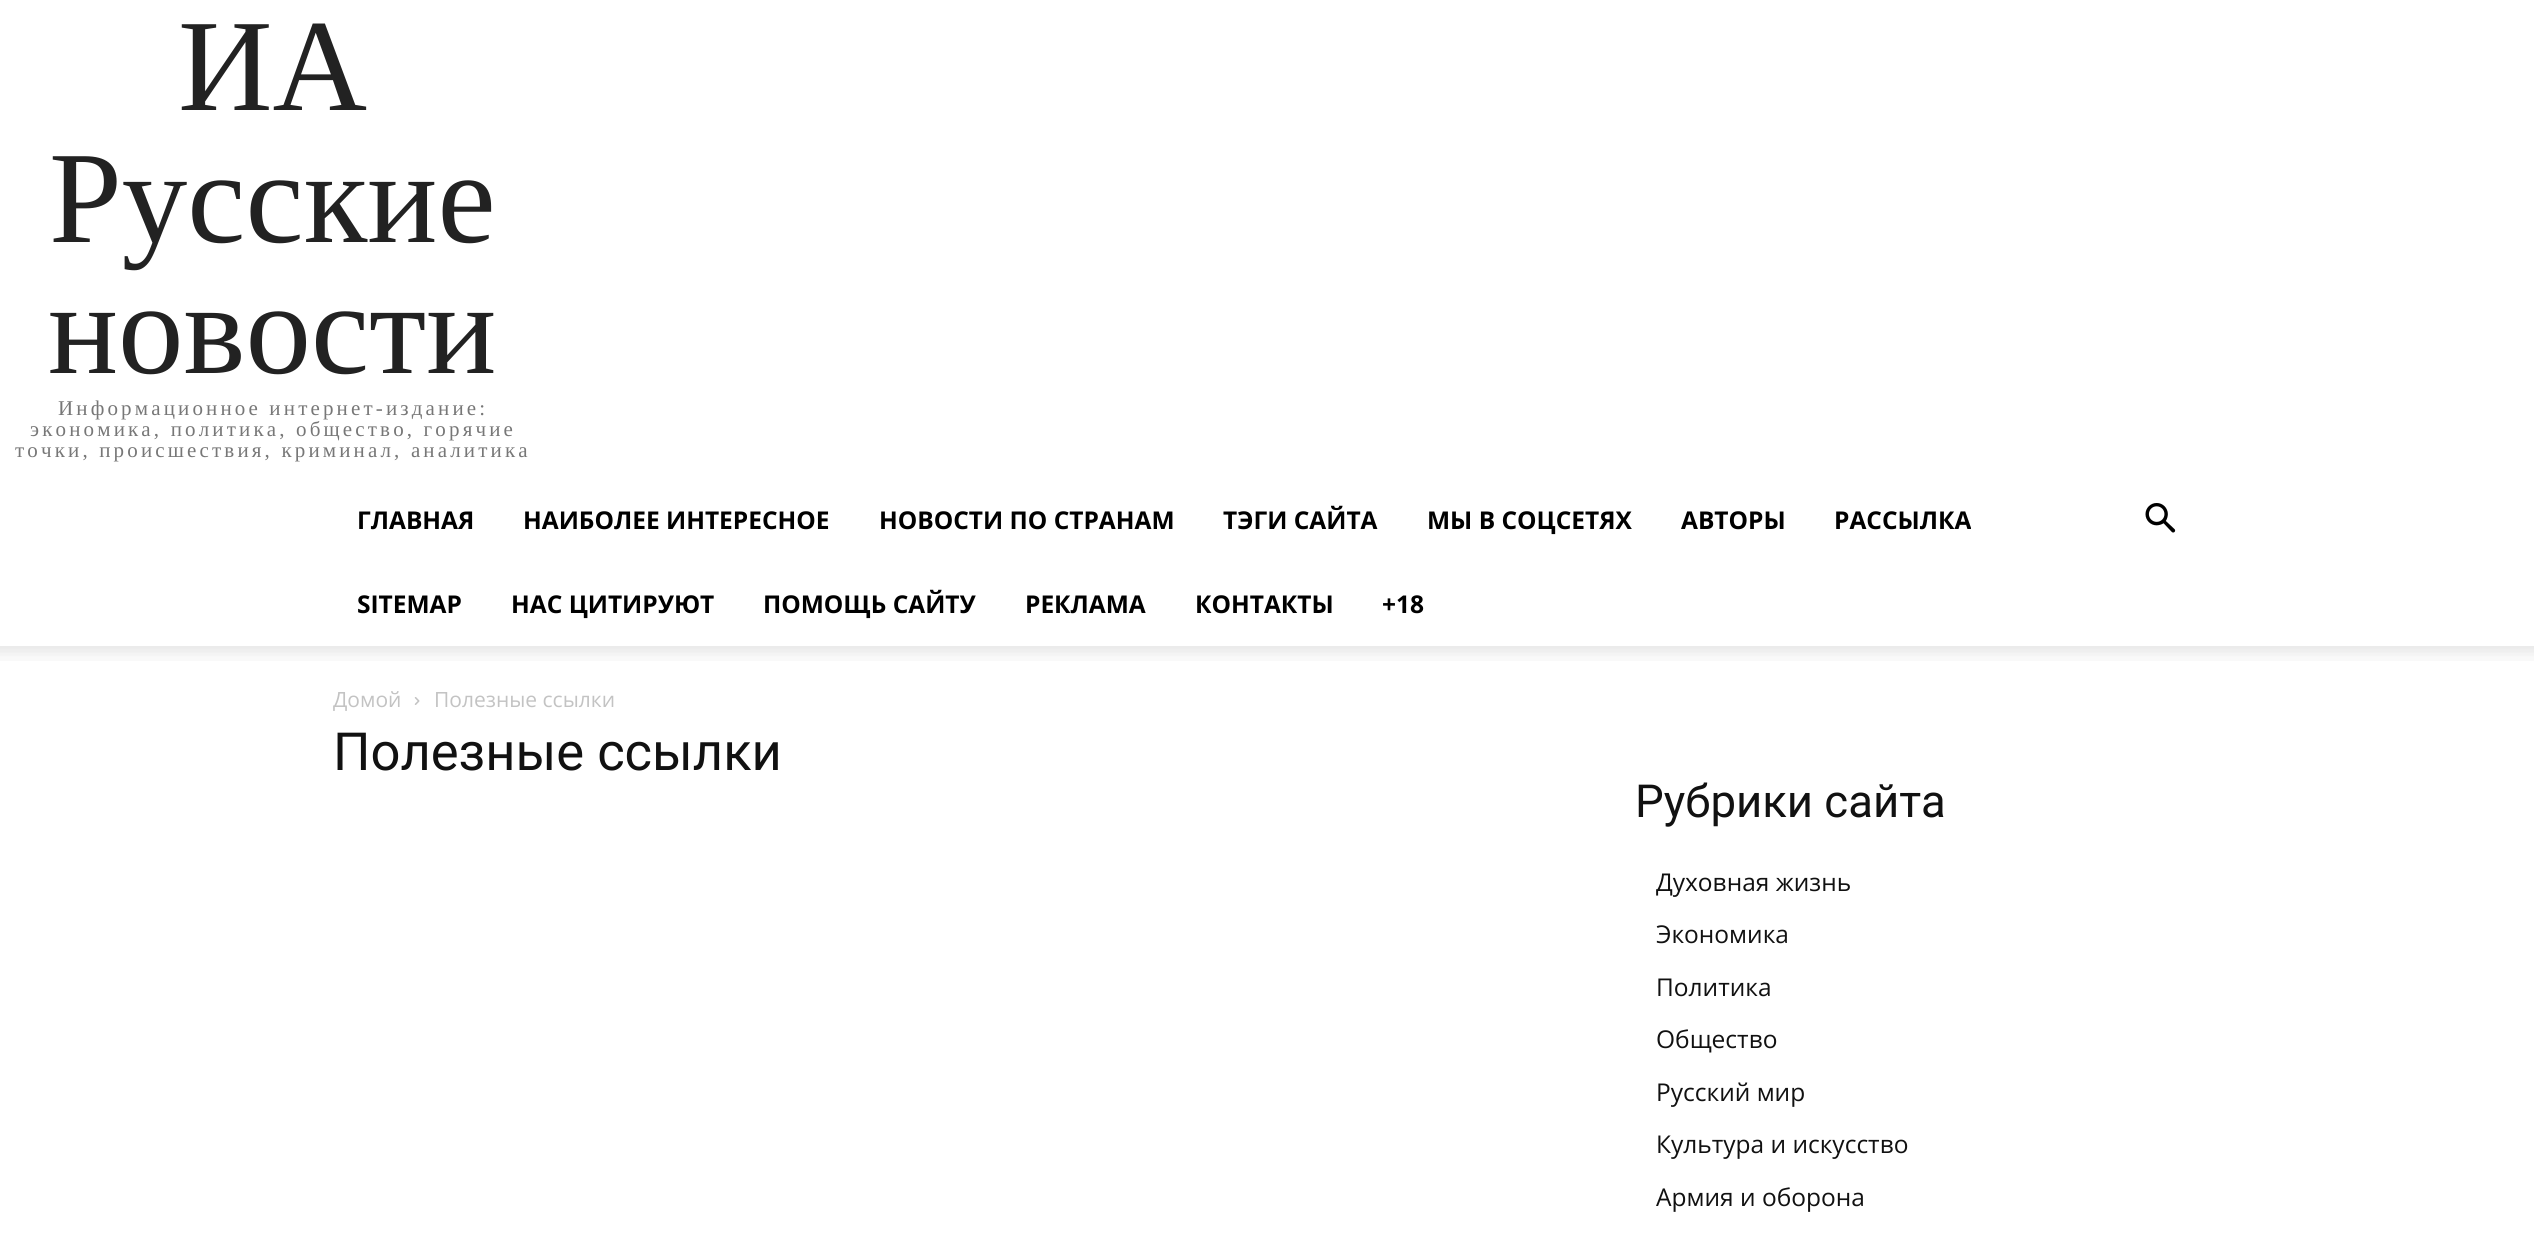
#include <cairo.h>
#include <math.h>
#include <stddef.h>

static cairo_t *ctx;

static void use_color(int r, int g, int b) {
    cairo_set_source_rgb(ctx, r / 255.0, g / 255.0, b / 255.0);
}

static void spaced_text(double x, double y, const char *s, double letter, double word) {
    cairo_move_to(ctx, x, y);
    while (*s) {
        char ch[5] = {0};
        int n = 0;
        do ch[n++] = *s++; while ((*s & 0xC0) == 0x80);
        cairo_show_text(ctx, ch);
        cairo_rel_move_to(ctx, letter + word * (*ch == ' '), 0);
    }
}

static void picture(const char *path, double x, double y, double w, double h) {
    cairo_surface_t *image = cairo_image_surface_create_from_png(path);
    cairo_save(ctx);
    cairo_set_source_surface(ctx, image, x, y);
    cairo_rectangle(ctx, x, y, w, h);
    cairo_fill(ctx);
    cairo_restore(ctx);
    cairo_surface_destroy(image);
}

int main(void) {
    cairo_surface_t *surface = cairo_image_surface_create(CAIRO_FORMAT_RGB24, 2534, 1249);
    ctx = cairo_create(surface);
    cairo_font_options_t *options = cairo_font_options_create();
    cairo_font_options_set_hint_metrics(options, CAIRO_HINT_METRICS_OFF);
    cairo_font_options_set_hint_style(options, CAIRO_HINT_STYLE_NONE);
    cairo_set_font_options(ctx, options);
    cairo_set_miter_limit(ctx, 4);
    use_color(255, 255, 255);
    cairo_paint(ctx);
    cairo_select_font_face(ctx, "Liberation Serif", CAIRO_FONT_SLANT_NORMAL, CAIRO_FONT_WEIGHT_NORMAL);
    cairo_set_font_size(ctx, 131);
    use_color(34, 34, 34);
    cairo_move_to(ctx, 178, 110);
    cairo_show_text(ctx, "ИА");
    cairo_move_to(ctx, 49, 242);
    cairo_show_text(ctx, "Русские");
    cairo_move_to(ctx, 48, 373);
    cairo_show_text(ctx, "новости");
    cairo_set_font_size(ctx, 21);
    use_color(119, 119, 119);
    spaced_text(58, 415, "Информационное интернет-издание:", 3.15, 0);
    spaced_text(30, 436, "экономика, политика, общество, горячие", 3.15, 0);
    spaced_text(15, 457, "точки, происшествия, криминал, аналитика", 3.15, 0);
    cairo_select_font_face(ctx, "Open Sans", CAIRO_FONT_SLANT_NORMAL, CAIRO_FONT_WEIGHT_BOLD);
    cairo_set_font_size(ctx, 24.5);
    use_color(0, 0, 0);
    cairo_move_to(ctx, 357, 529);
    cairo_show_text(ctx, "ГЛАВНАЯ");
    cairo_move_to(ctx, 523, 529);
    cairo_show_text(ctx, "НАИБОЛЕЕ ИНТЕРЕСНОЕ");
    cairo_move_to(ctx, 879, 529);
    cairo_show_text(ctx, "НОВОСТИ ПО СТРАНАМ");
    cairo_move_to(ctx, 1223, 529);
    cairo_show_text(ctx, "ТЭГИ САЙТА");
    cairo_move_to(ctx, 1427, 529);
    cairo_show_text(ctx, "МЫ В СОЦСЕТЯХ");
    cairo_move_to(ctx, 1681, 529);
    cairo_show_text(ctx, "АВТОРЫ");
    cairo_move_to(ctx, 1834, 529);
    cairo_show_text(ctx, "РАССЫЛКА");
    cairo_move_to(ctx, 357, 613);
    cairo_show_text(ctx, "SITEMAP");
    cairo_move_to(ctx, 511, 613);
    cairo_show_text(ctx, "НАС ЦИТИРУЮТ");
    cairo_move_to(ctx, 763, 613);
    cairo_show_text(ctx, "ПОМОЩЬ САЙТУ");
    cairo_move_to(ctx, 1025, 613);
    cairo_show_text(ctx, "РЕКЛАМА");
    cairo_move_to(ctx, 1195, 613);
    cairo_show_text(ctx, "КОНТАКТЫ");
    cairo_move_to(ctx, 1382, 613);
    cairo_show_text(ctx, "+18");
    picture("img1.png", 2145, 503, 31, 30);
    picture("img2.png", 0, 646, 2534, 15);
    cairo_select_font_face(ctx, "Open Sans", CAIRO_FONT_SLANT_NORMAL, CAIRO_FONT_WEIGHT_NORMAL);
    cairo_set_font_size(ctx, 21);
    use_color(195, 195, 195);
    cairo_move_to(ctx, 333, 707);
    cairo_show_text(ctx, "Домой");
    picture("img3.png", 414, 697, 6, 8);
    cairo_move_to(ctx, 434, 707);
    cairo_show_text(ctx, "Полезные ссылки");
    cairo_select_font_face(ctx, "Roboto", CAIRO_FONT_SLANT_NORMAL, CAIRO_FONT_WEIGHT_NORMAL);
    cairo_set_font_size(ctx, 52.5);
    use_color(17, 17, 17);
    cairo_move_to(ctx, 333, 770);
    cairo_show_text(ctx, "Полезные ссылки");
    cairo_set_font_size(ctx, 45.5);
    cairo_move_to(ctx, 1635, 817);
    cairo_show_text(ctx, "Рубрики сайта");
    cairo_select_font_face(ctx, "Open Sans", CAIRO_FONT_SLANT_NORMAL, CAIRO_FONT_WEIGHT_NORMAL);
    cairo_set_font_size(ctx, 24.5);
    cairo_move_to(ctx, 1656, 891);
    cairo_show_text(ctx, "Духовная жизнь");
    cairo_move_to(ctx, 1656, 943);
    cairo_show_text(ctx, "Экономика");
    cairo_move_to(ctx, 1656, 996);
    cairo_show_text(ctx, "Политика");
    cairo_move_to(ctx, 1656, 1048);
    cairo_show_text(ctx, "Общество");
    cairo_move_to(ctx, 1656, 1101);
    cairo_show_text(ctx, "Русский мир");
    cairo_move_to(ctx, 1656, 1153);
    cairo_show_text(ctx, "Культура и искусство");
    cairo_move_to(ctx, 1656, 1206);
    cairo_show_text(ctx, "Армия и оборона");
    cairo_surface_write_to_png(surface, "result.png");
    cairo_font_options_destroy(options);
    cairo_destroy(ctx);
    cairo_surface_destroy(surface);
    return 0;
}
